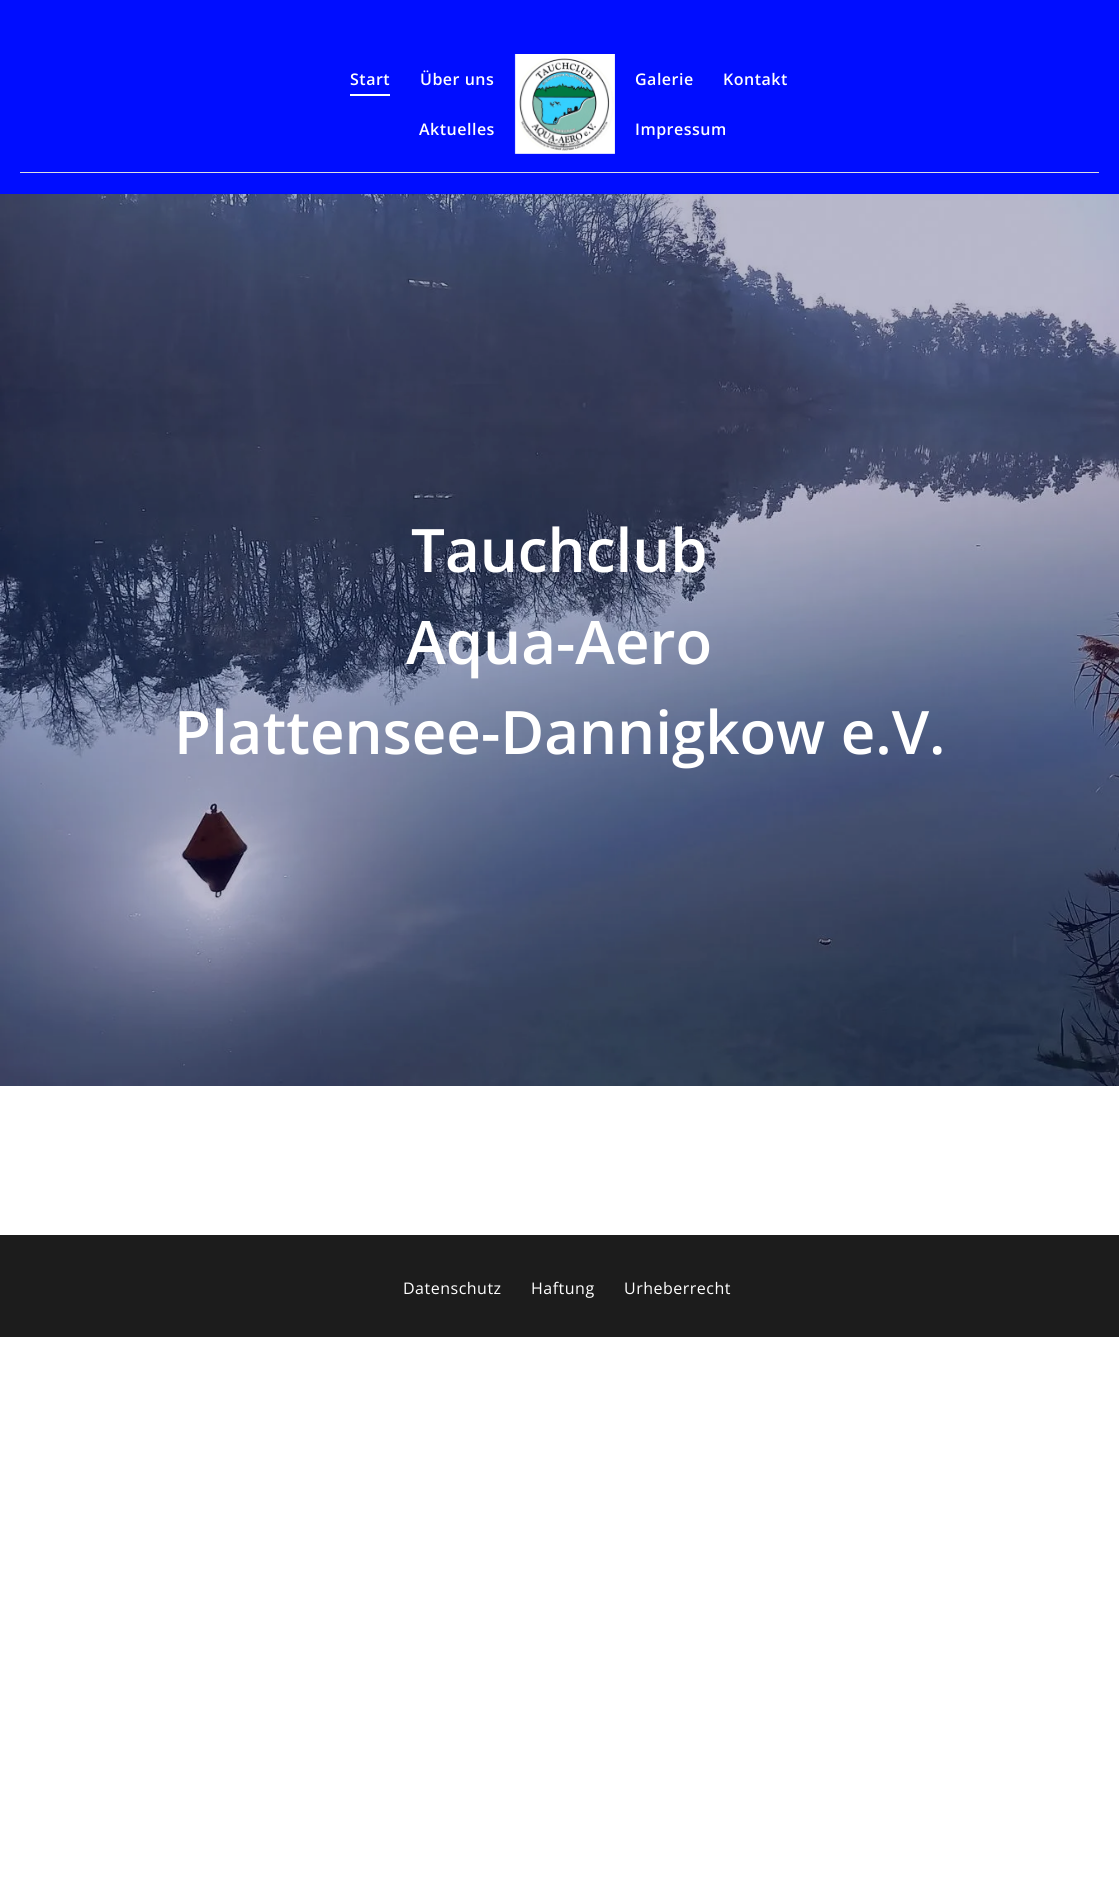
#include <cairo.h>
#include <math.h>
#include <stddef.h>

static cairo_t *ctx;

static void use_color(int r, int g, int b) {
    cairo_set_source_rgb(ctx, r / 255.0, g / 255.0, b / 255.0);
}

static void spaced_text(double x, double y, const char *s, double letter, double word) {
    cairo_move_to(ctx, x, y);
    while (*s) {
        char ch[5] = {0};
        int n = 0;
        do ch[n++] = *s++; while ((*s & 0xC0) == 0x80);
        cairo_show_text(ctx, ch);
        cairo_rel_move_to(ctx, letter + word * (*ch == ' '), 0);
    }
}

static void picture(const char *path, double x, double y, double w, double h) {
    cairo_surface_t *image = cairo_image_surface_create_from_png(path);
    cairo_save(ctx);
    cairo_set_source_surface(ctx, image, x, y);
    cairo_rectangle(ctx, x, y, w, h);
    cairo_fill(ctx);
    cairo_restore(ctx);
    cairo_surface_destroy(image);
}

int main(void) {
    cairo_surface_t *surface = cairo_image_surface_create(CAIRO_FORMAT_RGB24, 1119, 1888);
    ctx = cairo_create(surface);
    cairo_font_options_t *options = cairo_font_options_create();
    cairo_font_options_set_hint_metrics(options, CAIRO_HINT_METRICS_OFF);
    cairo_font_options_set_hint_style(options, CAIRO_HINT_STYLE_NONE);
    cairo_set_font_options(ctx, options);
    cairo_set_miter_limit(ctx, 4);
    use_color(255, 255, 255);
    cairo_paint(ctx);
    use_color(0, 13, 255);
    cairo_rectangle(ctx, 0, 0, 1119, 194);
    cairo_fill(ctx);
    use_color(222, 223, 225);
    cairo_rectangle(ctx, 20, 172, 1079, 1);
    cairo_fill(ctx);
    cairo_select_font_face(ctx, "Open Sans SemiBold", CAIRO_FONT_SLANT_NORMAL, CAIRO_FONT_WEIGHT_NORMAL);
    cairo_set_font_size(ctx, 16);
    use_color(255, 255, 255);
    spaced_text(350, 85, "Start", 0.5, 0);
    cairo_rectangle(ctx, 350, 94, 40, 2);
    cairo_fill(ctx);
    spaced_text(420, 85, "Über uns", 0.5, 0);
    spaced_text(419, 135, "Aktuelles", 0.5, 0);
    picture("img1.png", 514, 54, 101, 100);
    spaced_text(635, 85, "Galerie", 0.5, 0);
    spaced_text(723, 85, "Kontakt", 0.5, 0);
    spaced_text(635, 135, "Impressum", 0.5, 0);
    picture("img2.png", 0, 194, 1119, 892);
    cairo_set_font_size(ctx, 60);
    cairo_move_to(ctx, 411, 572);
    cairo_show_text(ctx, "Tauchclub");
    cairo_move_to(ctx, 406, 664);
    cairo_show_text(ctx, "Aqua-Aero");
    cairo_move_to(ctx, 174, 754);
    cairo_show_text(ctx, "Plattensee-Dannigkow e.V.");
    use_color(28, 28, 28);
    cairo_rectangle(ctx, 0, 1235, 1119, 102);
    cairo_fill(ctx);
    cairo_select_font_face(ctx, "Open Sans", CAIRO_FONT_SLANT_NORMAL, CAIRO_FONT_WEIGHT_NORMAL);
    cairo_set_font_size(ctx, 16);
    use_color(255, 255, 255);
    spaced_text(403, 1294, "Datenschutz", 0.5, 0);
    spaced_text(531, 1294, "Haftung", 0.5, 0);
    spaced_text(624, 1294, "Urheberrecht", 0.5, 0);
    cairo_surface_write_to_png(surface, "result.png");
    cairo_font_options_destroy(options);
    cairo_destroy(ctx);
    cairo_surface_destroy(surface);
    return 0;
}
